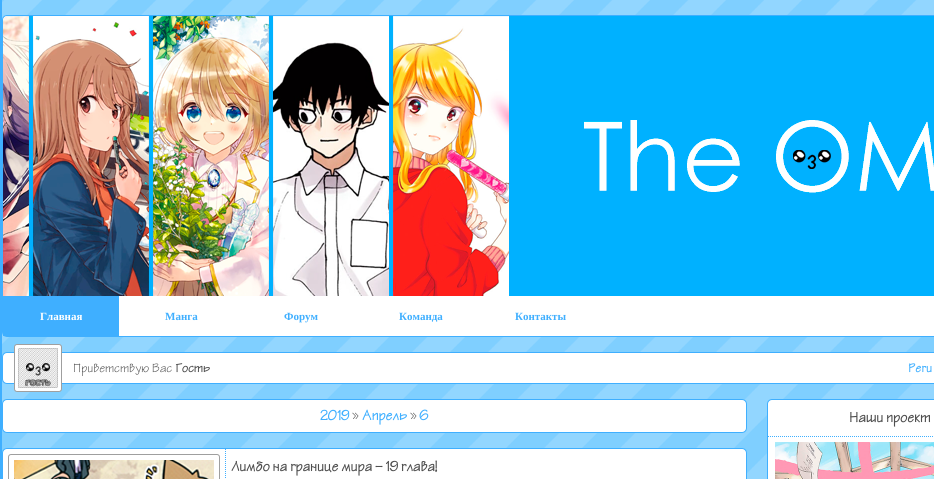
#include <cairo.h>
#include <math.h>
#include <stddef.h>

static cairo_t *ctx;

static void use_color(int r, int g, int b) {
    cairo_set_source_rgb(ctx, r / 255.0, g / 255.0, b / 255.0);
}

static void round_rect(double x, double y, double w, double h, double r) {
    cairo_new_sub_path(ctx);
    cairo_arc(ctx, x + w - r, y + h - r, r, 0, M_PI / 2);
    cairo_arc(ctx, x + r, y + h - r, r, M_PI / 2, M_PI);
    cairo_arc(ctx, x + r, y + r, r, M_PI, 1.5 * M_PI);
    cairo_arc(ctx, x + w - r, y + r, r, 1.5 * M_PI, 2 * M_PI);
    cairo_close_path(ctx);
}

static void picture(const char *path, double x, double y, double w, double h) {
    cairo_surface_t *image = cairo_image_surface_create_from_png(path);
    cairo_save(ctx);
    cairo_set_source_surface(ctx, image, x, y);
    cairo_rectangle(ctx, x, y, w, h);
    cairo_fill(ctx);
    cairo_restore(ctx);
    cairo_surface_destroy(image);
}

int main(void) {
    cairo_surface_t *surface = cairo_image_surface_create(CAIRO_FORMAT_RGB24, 934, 479);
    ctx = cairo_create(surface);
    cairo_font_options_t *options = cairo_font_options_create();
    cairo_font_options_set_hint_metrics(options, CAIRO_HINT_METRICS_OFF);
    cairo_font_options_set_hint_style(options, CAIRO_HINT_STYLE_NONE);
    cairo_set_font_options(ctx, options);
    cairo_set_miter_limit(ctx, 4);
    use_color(255, 255, 255);
    cairo_paint(ctx);
    picture("img1.png", 2, 0, 932, 479);
    use_color(63, 175, 255);
    cairo_rectangle(ctx, 0, 0, 2, 479);
    cairo_fill(ctx);
    use_color(255, 255, 255);
    round_rect(2.5, 15.5, 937, 321, 4.5);
    cairo_fill_preserve(ctx);
    use_color(63, 175, 255);
    cairo_set_line_width(ctx, 1);
    cairo_stroke(ctx);
    picture("img2.png", 3, 16, 931, 280);
    cairo_rectangle(ctx, 3, 296, 116, 40);
    cairo_fill(ctx);
    cairo_select_font_face(ctx, "Liberation Serif", CAIRO_FONT_SLANT_NORMAL, CAIRO_FONT_WEIGHT_BOLD);
    cairo_set_font_size(ctx, 11);
    use_color(255, 255, 255);
    cairo_move_to(ctx, 40, 320);
    cairo_show_text(ctx, "Главная");
    use_color(63, 175, 255);
    cairo_move_to(ctx, 165, 320);
    cairo_show_text(ctx, "Манга");
    cairo_move_to(ctx, 284, 320);
    cairo_show_text(ctx, "Форум");
    cairo_move_to(ctx, 399, 320);
    cairo_show_text(ctx, "Команда");
    cairo_move_to(ctx, 515, 320);
    cairo_show_text(ctx, "Контакты");
    use_color(255, 255, 255);
    round_rect(2.5, 352.5, 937, 31, 4.5);
    cairo_fill_preserve(ctx);
    use_color(63, 175, 255);
    cairo_stroke(ctx);
    use_color(255, 255, 255);
    round_rect(14.5, 344.5, 47, 47, 2.5);
    cairo_fill_preserve(ctx);
    use_color(159, 159, 159);
    cairo_stroke(ctx);
    picture("img3.png", 18, 348, 40, 40);
    cairo_select_font_face(ctx, "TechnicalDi", CAIRO_FONT_SLANT_NORMAL, CAIRO_FONT_WEIGHT_NORMAL);
    cairo_set_font_size(ctx, 13);
    use_color(79, 79, 79);
    cairo_move_to(ctx, 73, 372);
    cairo_show_text(ctx, "Приветствую Вас");
    cairo_select_font_face(ctx, "TechnicalDi", CAIRO_FONT_SLANT_NORMAL, CAIRO_FONT_WEIGHT_BOLD);
    cairo_move_to(ctx, 175, 372);
    cairo_show_text(ctx, "Гость");
    use_color(63, 175, 255);
    cairo_move_to(ctx, 908, 372);
    cairo_show_text(ctx, "Реги");
    use_color(255, 255, 255);
    round_rect(2.5, 399.5, 744, 33, 4.5);
    cairo_fill_preserve(ctx);
    use_color(63, 175, 255);
    cairo_stroke(ctx);
    cairo_set_font_size(ctx, 15);
    cairo_move_to(ctx, 320, 420);
    cairo_show_text(ctx, "2019");
    cairo_select_font_face(ctx, "TechnicalDi", CAIRO_FONT_SLANT_NORMAL, CAIRO_FONT_WEIGHT_NORMAL);
    use_color(79, 79, 79);
    cairo_move_to(ctx, 352, 420);
    cairo_show_text(ctx, "»");
    cairo_select_font_face(ctx, "TechnicalDi", CAIRO_FONT_SLANT_NORMAL, CAIRO_FONT_WEIGHT_BOLD);
    use_color(63, 175, 255);
    cairo_move_to(ctx, 362, 420);
    cairo_show_text(ctx, "Апрель");
    cairo_select_font_face(ctx, "TechnicalDi", CAIRO_FONT_SLANT_NORMAL, CAIRO_FONT_WEIGHT_NORMAL);
    use_color(79, 79, 79);
    cairo_move_to(ctx, 410, 420);
    cairo_show_text(ctx, "»");
    cairo_select_font_face(ctx, "TechnicalDi", CAIRO_FONT_SLANT_NORMAL, CAIRO_FONT_WEIGHT_BOLD);
    use_color(63, 175, 255);
    cairo_move_to(ctx, 419, 420);
    cairo_show_text(ctx, "6");
    use_color(255, 255, 255);
    round_rect(2.5, 448.5, 744, 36, 4.5);
    cairo_fill_preserve(ctx);
    use_color(63, 175, 255);
    cairo_stroke(ctx);
    cairo_new_path(ctx);
    cairo_move_to(ctx, 225.5, 449);
    cairo_line_to(ctx, 225.5, 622);
    cairo_set_dash(ctx, (double[]){1, 1}, 2, 0);
    cairo_stroke(ctx);
    round_rect(8.5, 454.5, 211, 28, 2.5);
    use_color(159, 159, 159);
    cairo_set_dash(ctx, NULL, 0, 0);
    cairo_stroke(ctx);
    picture("img4.png", 14, 460, 200, 19);
    use_color(79, 79, 79);
    cairo_move_to(ctx, 231, 471);
    cairo_show_text(ctx, "Лимбо на границе мира - 19 глава!");
    use_color(255, 255, 255);
    round_rect(767.5, 399.5, 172, 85, 4.5);
    cairo_fill_preserve(ctx);
    use_color(63, 175, 255);
    cairo_stroke(ctx);
    cairo_new_path(ctx);
    cairo_move_to(ctx, 768, 436.5);
    cairo_line_to(ctx, 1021, 436.5);
    cairo_set_dash(ctx, (double[]){1, 1}, 2, 0);
    cairo_stroke(ctx);
    use_color(79, 79, 79);
    cairo_move_to(ctx, 849, 422);
    cairo_show_text(ctx, "Наши проект");
    picture("img5.png", 775, 442, 159, 37);
    cairo_surface_write_to_png(surface, "result.png");
    cairo_font_options_destroy(options);
    cairo_destroy(ctx);
    cairo_surface_destroy(surface);
    return 0;
}
